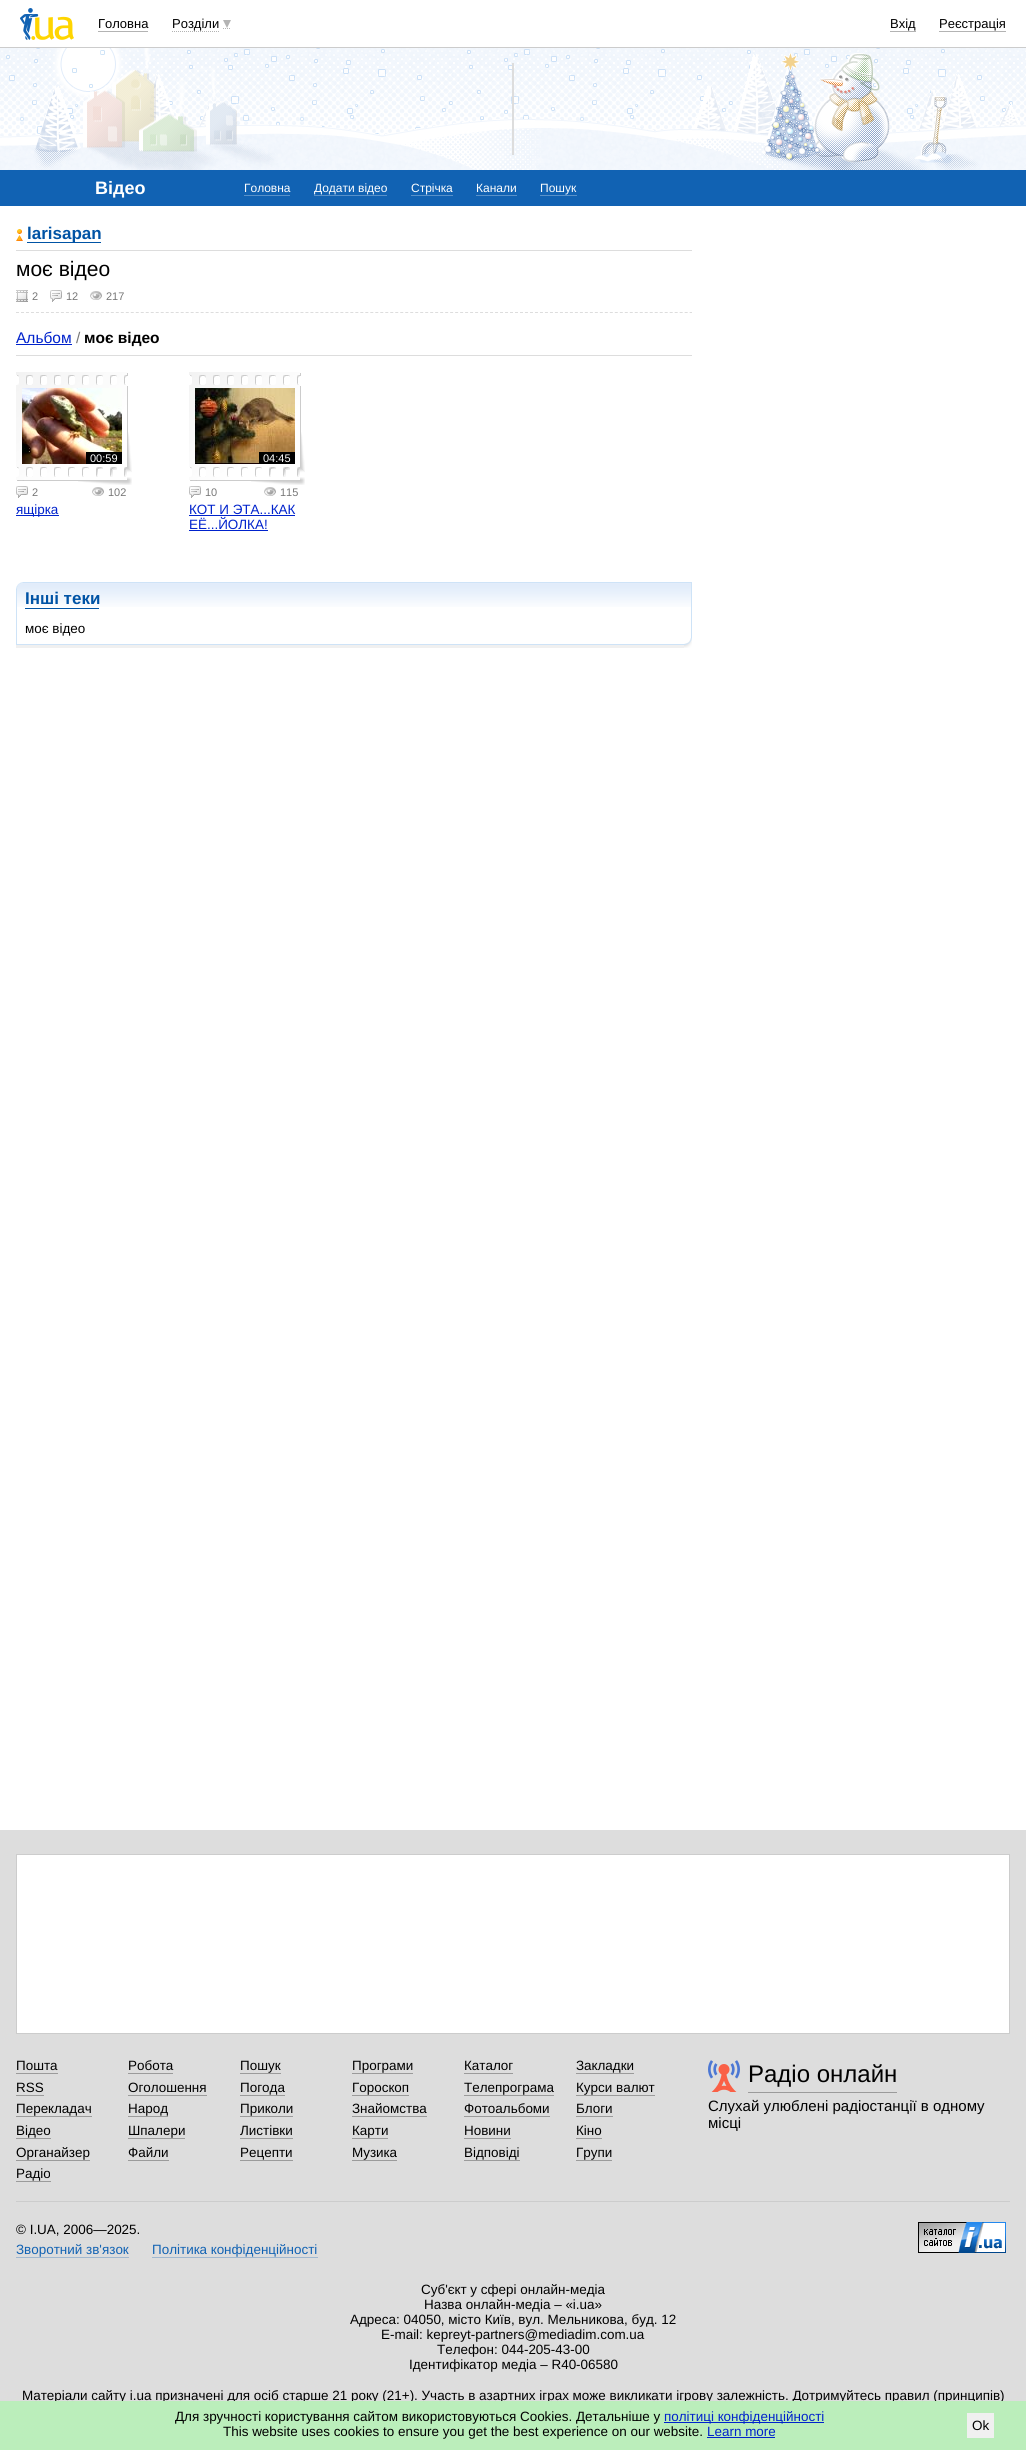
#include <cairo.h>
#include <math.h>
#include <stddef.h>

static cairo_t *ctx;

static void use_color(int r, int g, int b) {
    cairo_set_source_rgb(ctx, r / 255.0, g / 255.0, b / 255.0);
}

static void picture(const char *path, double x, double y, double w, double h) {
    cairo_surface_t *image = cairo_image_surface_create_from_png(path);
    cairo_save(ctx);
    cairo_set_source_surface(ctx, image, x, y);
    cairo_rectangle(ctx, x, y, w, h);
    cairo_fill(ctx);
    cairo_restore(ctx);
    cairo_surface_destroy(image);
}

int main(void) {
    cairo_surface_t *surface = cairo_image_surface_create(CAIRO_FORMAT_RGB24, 1026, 2450);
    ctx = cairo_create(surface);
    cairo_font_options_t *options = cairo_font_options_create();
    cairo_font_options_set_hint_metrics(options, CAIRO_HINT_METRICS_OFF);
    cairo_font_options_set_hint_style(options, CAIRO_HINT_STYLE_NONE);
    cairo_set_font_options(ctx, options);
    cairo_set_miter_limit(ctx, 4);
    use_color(255, 255, 255);
    cairo_paint(ctx);
    use_color(204, 204, 204);
    cairo_rectangle(ctx, 0, 47, 1026, 1);
    cairo_fill(ctx);
    picture("img1.png", 20, 8, 54, 32);
    cairo_select_font_face(ctx, "Liberation Sans", CAIRO_FONT_SLANT_NORMAL, CAIRO_FONT_WEIGHT_NORMAL);
    cairo_set_font_size(ctx, 13);
    use_color(0, 0, 0);
    cairo_move_to(ctx, 98, 28);
    cairo_show_text(ctx, "Головна");
    use_color(179, 179, 179);
    cairo_rectangle(ctx, 98, 31, 50, 1);
    cairo_fill(ctx);
    cairo_new_path(ctx);
    cairo_move_to(ctx, 172, 31.5);
    cairo_line_to(ctx, 219, 31.5);
    cairo_move_to(ctx, 223, 28.5);
    cairo_line_to(ctx, 231, 28.5);
    cairo_set_line_width(ctx, 1);
    cairo_set_dash(ctx, (double[]){1, 1}, 2, 0);
    cairo_stroke(ctx);
    use_color(0, 0, 0);
    cairo_move_to(ctx, 172, 28);
    cairo_show_text(ctx, "Розділи");
    use_color(179, 179, 179);
    cairo_new_path(ctx);
    cairo_move_to(ctx, 223, 20);
    cairo_line_to(ctx, 231, 20);
    cairo_line_to(ctx, 227, 28);
    cairo_close_path(ctx);
    cairo_fill(ctx);
    use_color(0, 0, 0);
    cairo_move_to(ctx, 890, 28);
    cairo_show_text(ctx, "Вхід");
    use_color(179, 179, 179);
    cairo_rectangle(ctx, 890, 31, 26, 1);
    cairo_fill(ctx);
    use_color(0, 0, 0);
    cairo_move_to(ctx, 939, 28);
    cairo_show_text(ctx, "Реєстрація");
    use_color(179, 179, 179);
    cairo_rectangle(ctx, 939, 31, 67, 1);
    cairo_fill(ctx);
    picture("img2.png", 0, 48, 1026, 122);
    use_color(221, 221, 221);
    cairo_rectangle(ctx, 512, 63, 2, 92);
    cairo_fill(ctx);
    use_color(17, 98, 179);
    cairo_rectangle(ctx, 0, 170, 1026, 36);
    cairo_fill(ctx);
    cairo_select_font_face(ctx, "Liberation Sans", CAIRO_FONT_SLANT_NORMAL, CAIRO_FONT_WEIGHT_BOLD);
    cairo_set_font_size(ctx, 18);
    use_color(255, 255, 255);
    cairo_move_to(ctx, 95, 194);
    cairo_show_text(ctx, "Відео");
    cairo_select_font_face(ctx, "Liberation Sans", CAIRO_FONT_SLANT_NORMAL, CAIRO_FONT_WEIGHT_NORMAL);
    cairo_set_font_size(ctx, 12);
    cairo_move_to(ctx, 244, 192);
    cairo_show_text(ctx, "Головна");
    use_color(88, 145, 202);
    cairo_rectangle(ctx, 244, 195, 46, 1);
    cairo_fill(ctx);
    use_color(255, 255, 255);
    cairo_move_to(ctx, 314, 192);
    cairo_show_text(ctx, "Додати відео");
    use_color(88, 145, 202);
    cairo_rectangle(ctx, 314, 195, 73, 1);
    cairo_fill(ctx);
    use_color(255, 255, 255);
    cairo_move_to(ctx, 411, 192);
    cairo_show_text(ctx, "Стрічка");
    use_color(88, 145, 202);
    cairo_rectangle(ctx, 411, 195, 42, 1);
    cairo_fill(ctx);
    use_color(255, 255, 255);
    cairo_move_to(ctx, 476, 192);
    cairo_show_text(ctx, "Канали");
    use_color(88, 145, 202);
    cairo_rectangle(ctx, 476, 195, 41, 1);
    cairo_fill(ctx);
    use_color(255, 255, 255);
    cairo_move_to(ctx, 540, 192);
    cairo_show_text(ctx, "Пошук");
    use_color(88, 145, 202);
    cairo_rectangle(ctx, 540, 195, 37, 1);
    cairo_fill(ctx);
    use_color(221, 221, 221);
    cairo_rectangle(ctx, 16, 250, 676, 1);
    cairo_fill(ctx);
    use_color(0, 83, 165);
    cairo_rectangle(ctx, 27, 242, 74, 1);
    cairo_fill(ctx);
    picture("img3.png", 16, 229, 7, 12);
    cairo_select_font_face(ctx, "Liberation Sans", CAIRO_FONT_SLANT_NORMAL, CAIRO_FONT_WEIGHT_BOLD);
    cairo_set_font_size(ctx, 17);
    cairo_move_to(ctx, 27, 239);
    cairo_show_text(ctx, "larisapan");
    cairo_new_path(ctx);
    cairo_move_to(ctx, 16, 312.5);
    cairo_line_to(ctx, 692, 312.5);
    use_color(221, 221, 221);
    cairo_set_dash(ctx, (double[]){3, 1.99}, 2, 0);
    cairo_stroke(ctx);
    cairo_select_font_face(ctx, "Liberation Sans", CAIRO_FONT_SLANT_NORMAL, CAIRO_FONT_WEIGHT_NORMAL);
    cairo_set_font_size(ctx, 21);
    use_color(0, 0, 0);
    cairo_move_to(ctx, 16, 276);
    cairo_show_text(ctx, "моє відео");
    picture("img4.png", 16, 290, 12, 12);
    cairo_set_font_size(ctx, 11);
    use_color(119, 119, 119);
    cairo_move_to(ctx, 32, 300);
    cairo_show_text(ctx, "2");
    picture("img5.png", 50, 290, 12, 12);
    cairo_move_to(ctx, 66, 300);
    cairo_show_text(ctx, "12");
    picture("img6.png", 90, 291, 12, 9);
    cairo_move_to(ctx, 106, 300);
    cairo_show_text(ctx, "217");
    cairo_set_font_size(ctx, 15.5);
    use_color(0, 34, 204);
    cairo_move_to(ctx, 16, 343);
    cairo_show_text(ctx, "Альбом");
    cairo_rectangle(ctx, 16, 344, 56, 1);
    cairo_fill(ctx);
    use_color(119, 119, 119);
    cairo_move_to(ctx, 76, 343);
    cairo_show_text(ctx, "/");
    cairo_select_font_face(ctx, "Liberation Sans", CAIRO_FONT_SLANT_NORMAL, CAIRO_FONT_WEIGHT_BOLD);
    use_color(0, 0, 0);
    cairo_move_to(ctx, 84, 343);
    cairo_show_text(ctx, "моє відео");
    use_color(221, 221, 221);
    cairo_rectangle(ctx, 16, 355, 676, 1);
    cairo_fill(ctx);
    picture("img7.png", 16, 372, 116, 113);
    picture("img8.png", 22, 388, 100, 76);
    use_color(0, 0, 0);
    cairo_rectangle(ctx, 86, 452, 36, 12);
    cairo_fill(ctx);
    cairo_select_font_face(ctx, "Liberation Sans", CAIRO_FONT_SLANT_NORMAL, CAIRO_FONT_WEIGHT_NORMAL);
    cairo_set_font_size(ctx, 11);
    use_color(255, 255, 255);
    cairo_move_to(ctx, 90, 462);
    cairo_show_text(ctx, "00:59");
    picture("img5.png", 16, 486, 12, 12);
    use_color(119, 119, 119);
    cairo_move_to(ctx, 32, 496);
    cairo_show_text(ctx, "2");
    picture("img6.png", 92, 487, 12, 9);
    cairo_move_to(ctx, 108, 496);
    cairo_show_text(ctx, "102");
    use_color(0, 34, 204);
    cairo_rectangle(ctx, 16, 515, 43, 1);
    cairo_fill(ctx);
    cairo_set_font_size(ctx, 13.45);
    cairo_move_to(ctx, 16, 514);
    cairo_show_text(ctx, "ящірка");
    picture("img7.png", 189, 372, 116, 113);
    picture("img9.png", 195, 388, 100, 76);
    use_color(0, 0, 0);
    cairo_rectangle(ctx, 259, 452, 36, 12);
    cairo_fill(ctx);
    cairo_set_font_size(ctx, 11);
    use_color(255, 255, 255);
    cairo_move_to(ctx, 263, 462);
    cairo_show_text(ctx, "04:45");
    picture("img5.png", 189, 486, 12, 12);
    use_color(119, 119, 119);
    cairo_move_to(ctx, 205, 496);
    cairo_show_text(ctx, "10");
    picture("img6.png", 264, 487, 12, 9);
    cairo_move_to(ctx, 280, 496);
    cairo_show_text(ctx, "115");
    cairo_set_font_size(ctx, 13.45);
    use_color(0, 34, 204);
    cairo_move_to(ctx, 189, 514);
    cairo_show_text(ctx, "КОТ И ЭТА...КАК");
    cairo_rectangle(ctx, 189, 515, 106, 1);
    cairo_fill(ctx);
    cairo_move_to(ctx, 189, 529);
    cairo_show_text(ctx, "ЕЁ...ЙОЛКА!");
    cairo_rectangle(ctx, 189, 530, 79, 1);
    cairo_fill(ctx);
    use_color(240, 240, 240);
    cairo_rectangle(ctx, 16, 645, 676, 3);
    cairo_fill(ctx);
    picture("img11.png", 17, 583, 674, 24);
    cairo_rectangle(ctx, 16.5, 582.5, 675, 62);
    use_color(206, 227, 247);
    cairo_set_dash(ctx, NULL, 0, 0);
    cairo_stroke(ctx);
    picture("img10.png", 16, 582, 7, 7);
    cairo_select_font_face(ctx, "Liberation Sans", CAIRO_FONT_SLANT_NORMAL, CAIRO_FONT_WEIGHT_BOLD);
    cairo_set_font_size(ctx, 17);
    use_color(0, 83, 165);
    cairo_move_to(ctx, 25, 604);
    cairo_show_text(ctx, "Інші теки");
    cairo_rectangle(ctx, 25, 608, 74, 1);
    cairo_fill(ctx);
    cairo_select_font_face(ctx, "Liberation Sans", CAIRO_FONT_SLANT_NORMAL, CAIRO_FONT_WEIGHT_NORMAL);
    cairo_set_font_size(ctx, 13.45);
    use_color(0, 0, 0);
    cairo_move_to(ctx, 25, 633);
    cairo_show_text(ctx, "моє відео");
    picture("img12.png", 684, 638, 8, 10);
    use_color(221, 221, 221);
    cairo_rectangle(ctx, 0, 1830, 1026, 571);
    cairo_fill(ctx);
    use_color(255, 255, 255);
    cairo_rectangle(ctx, 16.5, 1854.5, 993, 179);
    cairo_fill_preserve(ctx);
    use_color(204, 204, 204);
    cairo_stroke(ctx);
    use_color(0, 0, 0);
    cairo_move_to(ctx, 16, 2070);
    cairo_show_text(ctx, "Пошта");
    use_color(155, 155, 155);
    cairo_rectangle(ctx, 16, 2073, 42, 1);
    cairo_fill(ctx);
    use_color(0, 0, 0);
    cairo_move_to(ctx, 128, 2070);
    cairo_show_text(ctx, "Робота");
    use_color(155, 155, 155);
    cairo_rectangle(ctx, 128, 2073, 45, 1);
    cairo_fill(ctx);
    use_color(0, 0, 0);
    cairo_move_to(ctx, 240, 2070);
    cairo_show_text(ctx, "Пошук");
    use_color(155, 155, 155);
    cairo_rectangle(ctx, 240, 2073, 41, 1);
    cairo_fill(ctx);
    use_color(0, 0, 0);
    cairo_move_to(ctx, 352, 2070);
    cairo_show_text(ctx, "Програми");
    use_color(155, 155, 155);
    cairo_rectangle(ctx, 352, 2073, 61, 1);
    cairo_fill(ctx);
    use_color(0, 0, 0);
    cairo_move_to(ctx, 464, 2070);
    cairo_show_text(ctx, "Каталог");
    use_color(155, 155, 155);
    cairo_rectangle(ctx, 464, 2073, 49, 1);
    cairo_fill(ctx);
    use_color(0, 0, 0);
    cairo_move_to(ctx, 576, 2070);
    cairo_show_text(ctx, "Закладки");
    use_color(155, 155, 155);
    cairo_rectangle(ctx, 576, 2073, 58, 1);
    cairo_fill(ctx);
    use_color(0, 0, 0);
    cairo_move_to(ctx, 16, 2092);
    cairo_show_text(ctx, "RSS");
    use_color(155, 155, 155);
    cairo_rectangle(ctx, 16, 2095, 28, 1);
    cairo_fill(ctx);
    use_color(0, 0, 0);
    cairo_move_to(ctx, 128, 2092);
    cairo_show_text(ctx, "Оголошення");
    use_color(155, 155, 155);
    cairo_rectangle(ctx, 128, 2095, 79, 1);
    cairo_fill(ctx);
    use_color(0, 0, 0);
    cairo_move_to(ctx, 240, 2092);
    cairo_show_text(ctx, "Погода");
    use_color(155, 155, 155);
    cairo_rectangle(ctx, 240, 2095, 45, 1);
    cairo_fill(ctx);
    use_color(0, 0, 0);
    cairo_move_to(ctx, 352, 2092);
    cairo_show_text(ctx, "Гороскоп");
    use_color(155, 155, 155);
    cairo_rectangle(ctx, 352, 2095, 57, 1);
    cairo_fill(ctx);
    use_color(0, 0, 0);
    cairo_move_to(ctx, 464, 2092);
    cairo_show_text(ctx, "Телепрограма");
    use_color(155, 155, 155);
    cairo_rectangle(ctx, 464, 2095, 90, 1);
    cairo_fill(ctx);
    use_color(0, 0, 0);
    cairo_move_to(ctx, 576, 2092);
    cairo_show_text(ctx, "Курси валют");
    use_color(155, 155, 155);
    cairo_rectangle(ctx, 576, 2095, 79, 1);
    cairo_fill(ctx);
    use_color(0, 0, 0);
    cairo_move_to(ctx, 16, 2113);
    cairo_show_text(ctx, "Перекладач");
    use_color(155, 155, 155);
    cairo_rectangle(ctx, 16, 2116, 76, 1);
    cairo_fill(ctx);
    use_color(0, 0, 0);
    cairo_move_to(ctx, 128, 2113);
    cairo_show_text(ctx, "Народ");
    use_color(155, 155, 155);
    cairo_rectangle(ctx, 128, 2116, 40, 1);
    cairo_fill(ctx);
    use_color(0, 0, 0);
    cairo_move_to(ctx, 240, 2113);
    cairo_show_text(ctx, "Приколи");
    use_color(155, 155, 155);
    cairo_rectangle(ctx, 240, 2116, 53, 1);
    cairo_fill(ctx);
    use_color(0, 0, 0);
    cairo_move_to(ctx, 352, 2113);
    cairo_show_text(ctx, "Знайомства");
    use_color(155, 155, 155);
    cairo_rectangle(ctx, 352, 2116, 75, 1);
    cairo_fill(ctx);
    use_color(0, 0, 0);
    cairo_move_to(ctx, 464, 2113);
    cairo_show_text(ctx, "Фотоальбоми");
    use_color(155, 155, 155);
    cairo_rectangle(ctx, 464, 2116, 86, 1);
    cairo_fill(ctx);
    use_color(0, 0, 0);
    cairo_move_to(ctx, 576, 2113);
    cairo_show_text(ctx, "Блоги");
    use_color(155, 155, 155);
    cairo_rectangle(ctx, 576, 2116, 37, 1);
    cairo_fill(ctx);
    use_color(0, 0, 0);
    cairo_move_to(ctx, 16, 2135);
    cairo_show_text(ctx, "Відео");
    use_color(155, 155, 155);
    cairo_rectangle(ctx, 16, 2138, 35, 1);
    cairo_fill(ctx);
    use_color(0, 0, 0);
    cairo_move_to(ctx, 128, 2135);
    cairo_show_text(ctx, "Шпалери");
    use_color(155, 155, 155);
    cairo_rectangle(ctx, 128, 2138, 57, 1);
    cairo_fill(ctx);
    use_color(0, 0, 0);
    cairo_move_to(ctx, 240, 2135);
    cairo_show_text(ctx, "Листівки");
    use_color(155, 155, 155);
    cairo_rectangle(ctx, 240, 2138, 53, 1);
    cairo_fill(ctx);
    use_color(0, 0, 0);
    cairo_move_to(ctx, 352, 2135);
    cairo_show_text(ctx, "Карти");
    use_color(155, 155, 155);
    cairo_rectangle(ctx, 352, 2138, 36, 1);
    cairo_fill(ctx);
    use_color(0, 0, 0);
    cairo_move_to(ctx, 464, 2135);
    cairo_show_text(ctx, "Новини");
    use_color(155, 155, 155);
    cairo_rectangle(ctx, 464, 2138, 47, 1);
    cairo_fill(ctx);
    use_color(0, 0, 0);
    cairo_move_to(ctx, 576, 2135);
    cairo_show_text(ctx, "Кіно");
    use_color(155, 155, 155);
    cairo_rectangle(ctx, 576, 2138, 26, 1);
    cairo_fill(ctx);
    use_color(0, 0, 0);
    cairo_move_to(ctx, 16, 2157);
    cairo_show_text(ctx, "Органайзер");
    use_color(155, 155, 155);
    cairo_rectangle(ctx, 16, 2160, 74, 1);
    cairo_fill(ctx);
    use_color(0, 0, 0);
    cairo_move_to(ctx, 128, 2157);
    cairo_show_text(ctx, "Файли");
    use_color(155, 155, 155);
    cairo_rectangle(ctx, 128, 2160, 41, 1);
    cairo_fill(ctx);
    use_color(0, 0, 0);
    cairo_move_to(ctx, 240, 2157);
    cairo_show_text(ctx, "Рецепти");
    use_color(155, 155, 155);
    cairo_rectangle(ctx, 240, 2160, 53, 1);
    cairo_fill(ctx);
    use_color(0, 0, 0);
    cairo_move_to(ctx, 352, 2157);
    cairo_show_text(ctx, "Музика");
    use_color(155, 155, 155);
    cairo_rectangle(ctx, 352, 2160, 45, 1);
    cairo_fill(ctx);
    use_color(0, 0, 0);
    cairo_move_to(ctx, 464, 2157);
    cairo_show_text(ctx, "Відповіді");
    use_color(155, 155, 155);
    cairo_rectangle(ctx, 464, 2160, 56, 1);
    cairo_fill(ctx);
    use_color(0, 0, 0);
    cairo_move_to(ctx, 576, 2157);
    cairo_show_text(ctx, "Групи");
    use_color(155, 155, 155);
    cairo_rectangle(ctx, 576, 2160, 36, 1);
    cairo_fill(ctx);
    use_color(0, 0, 0);
    cairo_move_to(ctx, 16, 2178);
    cairo_show_text(ctx, "Радіо");
    use_color(155, 155, 155);
    cairo_rectangle(ctx, 16, 2181, 35, 1);
    cairo_fill(ctx);
    cairo_rectangle(ctx, 748, 2092, 149, 1);
    cairo_fill(ctx);
    picture("img13.png", 708, 2060, 32, 32);
    cairo_set_font_size(ctx, 24);
    use_color(0, 0, 0);
    cairo_move_to(ctx, 748, 2082);
    cairo_show_text(ctx, "Радіо онлайн");
    cairo_set_font_size(ctx, 15);
    cairo_move_to(ctx, 708, 2111);
    cairo_show_text(ctx, "Слухай улюблені радіостанції в одному");
    cairo_move_to(ctx, 708, 2128);
    cairo_show_text(ctx, "місці");
    use_color(204, 204, 204);
    cairo_rectangle(ctx, 16, 2201, 994, 1);
    cairo_fill(ctx);
    cairo_set_font_size(ctx, 13.45);
    use_color(0, 0, 0);
    cairo_move_to(ctx, 16, 2234);
    cairo_show_text(ctx, "© I.UA, 2006—2025.");
    picture("img14.png", 918, 2222, 88, 31);
    use_color(17, 98, 179);
    cairo_move_to(ctx, 16, 2254);
    cairo_show_text(ctx, "Зворотний зв'язок");
    use_color(160, 184, 208);
    cairo_rectangle(ctx, 16, 2257, 113, 1);
    cairo_fill(ctx);
    use_color(17, 98, 179);
    cairo_move_to(ctx, 152, 2254);
    cairo_show_text(ctx, "Політика конфіденційності");
    use_color(160, 184, 208);
    cairo_rectangle(ctx, 152, 2257, 166, 1);
    cairo_fill(ctx);
    use_color(0, 0, 0);
    cairo_move_to(ctx, 421, 2294);
    cairo_show_text(ctx, "Суб'єкт у сфері онлайн-медіа");
    cairo_move_to(ctx, 424, 2309);
    cairo_show_text(ctx, "Назва онлайн-медіа – «i.ua»");
    cairo_move_to(ctx, 350, 2324);
    cairo_show_text(ctx, "Адреса: 04050, місто Київ, вул. Мельникова, буд. 12");
    cairo_move_to(ctx, 381, 2339);
    cairo_show_text(ctx, "E-mail: kepreyt-partners@mediadim.com.ua");
    cairo_move_to(ctx, 437, 2354);
    cairo_show_text(ctx, "Телефон: 044-205-43-00");
    cairo_move_to(ctx, 409, 2369);
    cairo_show_text(ctx, "Ідентифікатор медіа – R40-06580");
    cairo_move_to(ctx, 22, 2400);
    cairo_show_text(ctx, "Матеріали сайту i.ua призначені для осіб старше 21 року (21+). Участь в азартних іграх може викликати ігрову залежність. Дотримуйтесь правил (принципів)");
    use_color(187, 238, 187);
    cairo_rectangle(ctx, 0, 2401, 1026, 49);
    cairo_fill(ctx);
    use_color(0, 0, 0);
    cairo_move_to(ctx, 175, 2421);
    cairo_show_text(ctx, "Для зручності користування сайтом використовуються Cookies. Детальніше у");
    use_color(0, 34, 204);
    cairo_rectangle(ctx, 664, 2422, 160, 1);
    cairo_fill(ctx);
    cairo_move_to(ctx, 664, 2421);
    cairo_show_text(ctx, "політиці конфіденційності");
    use_color(0, 0, 0);
    cairo_move_to(ctx, 223, 2436);
    cairo_show_text(ctx, "This website uses cookies to ensure you get the best experience on our website.");
    use_color(0, 34, 204);
    cairo_move_to(ctx, 707, 2436);
    cairo_show_text(ctx, "Learn more");
    cairo_rectangle(ctx, 707, 2437, 68, 1);
    cairo_fill(ctx);
    use_color(240, 240, 240);
    cairo_rectangle(ctx, 967, 2413, 27, 25);
    cairo_fill(ctx);
    use_color(0, 0, 0);
    cairo_move_to(ctx, 972, 2430);
    cairo_show_text(ctx, "Ok");
    cairo_surface_write_to_png(surface, "result.png");
    cairo_font_options_destroy(options);
    cairo_destroy(ctx);
    cairo_surface_destroy(surface);
    return 0;
}
